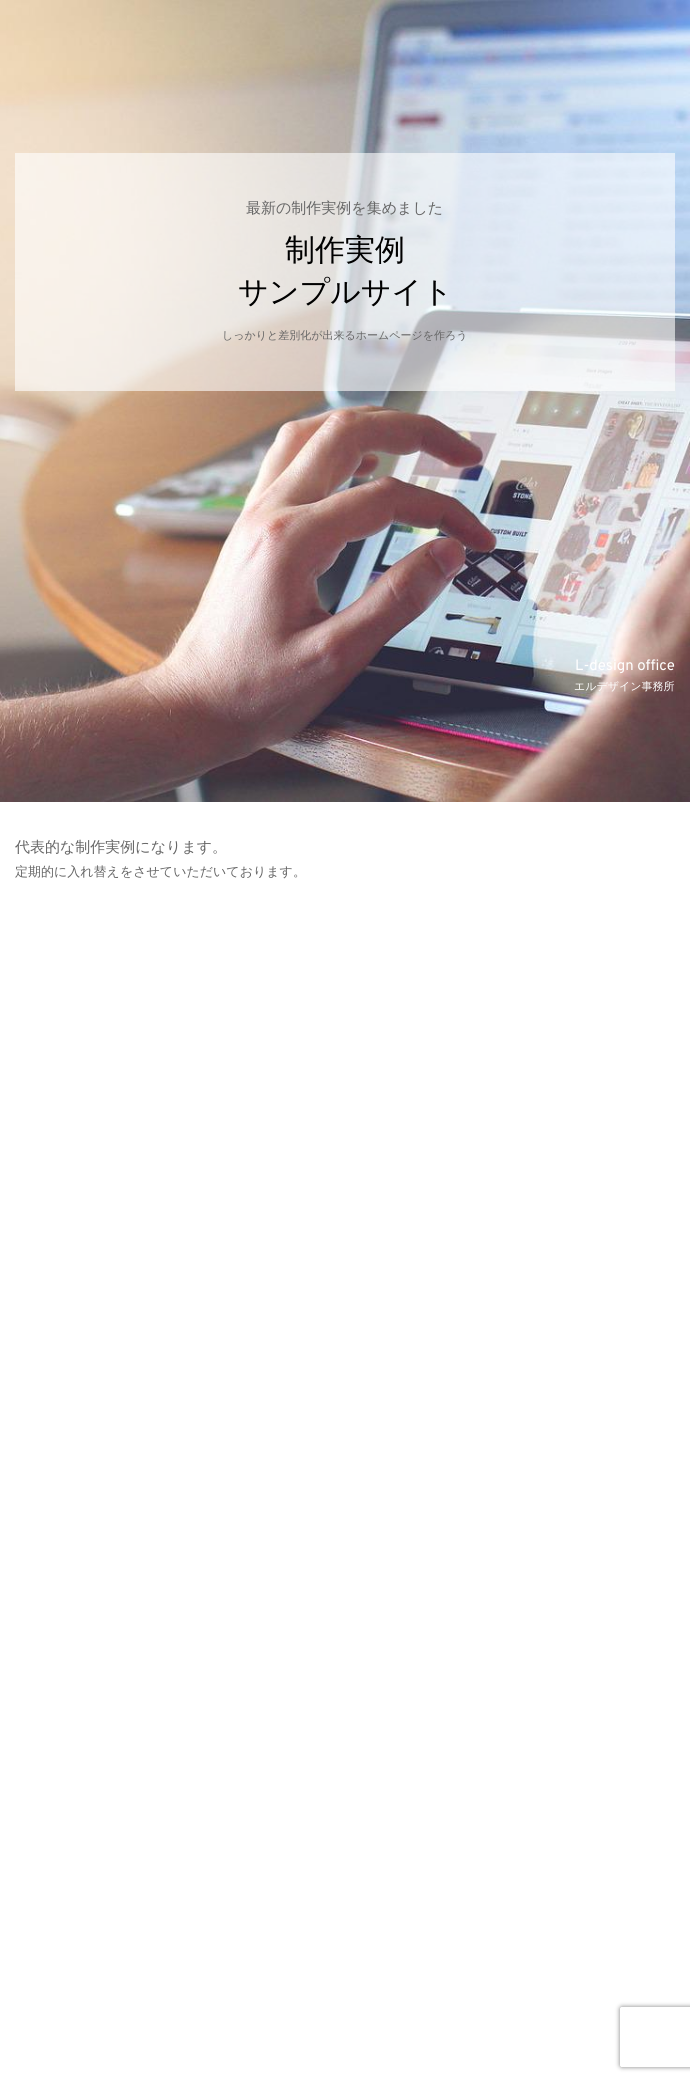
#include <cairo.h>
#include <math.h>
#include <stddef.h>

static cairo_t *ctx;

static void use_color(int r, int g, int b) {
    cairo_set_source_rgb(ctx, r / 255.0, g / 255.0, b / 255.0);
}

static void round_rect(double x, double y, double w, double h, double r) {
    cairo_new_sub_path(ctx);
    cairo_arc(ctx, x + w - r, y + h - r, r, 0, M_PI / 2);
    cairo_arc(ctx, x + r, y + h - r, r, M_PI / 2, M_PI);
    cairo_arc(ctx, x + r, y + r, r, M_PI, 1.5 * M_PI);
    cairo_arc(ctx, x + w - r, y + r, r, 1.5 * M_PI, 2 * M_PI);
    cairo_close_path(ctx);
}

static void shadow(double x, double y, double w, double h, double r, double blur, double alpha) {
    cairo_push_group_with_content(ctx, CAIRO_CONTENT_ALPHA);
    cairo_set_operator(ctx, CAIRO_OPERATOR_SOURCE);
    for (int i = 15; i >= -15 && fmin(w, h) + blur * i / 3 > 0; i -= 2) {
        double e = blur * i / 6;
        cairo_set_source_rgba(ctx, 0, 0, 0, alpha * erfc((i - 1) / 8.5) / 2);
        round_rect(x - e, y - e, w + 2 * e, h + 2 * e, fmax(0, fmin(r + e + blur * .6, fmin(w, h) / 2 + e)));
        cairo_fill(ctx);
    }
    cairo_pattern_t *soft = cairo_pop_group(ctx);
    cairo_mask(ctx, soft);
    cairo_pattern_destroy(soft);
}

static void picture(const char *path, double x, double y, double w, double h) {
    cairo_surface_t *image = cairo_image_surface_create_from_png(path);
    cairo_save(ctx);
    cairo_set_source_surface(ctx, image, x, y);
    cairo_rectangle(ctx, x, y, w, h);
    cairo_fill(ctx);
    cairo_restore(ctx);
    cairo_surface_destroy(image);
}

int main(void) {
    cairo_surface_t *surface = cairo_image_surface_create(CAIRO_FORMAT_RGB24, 690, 2081);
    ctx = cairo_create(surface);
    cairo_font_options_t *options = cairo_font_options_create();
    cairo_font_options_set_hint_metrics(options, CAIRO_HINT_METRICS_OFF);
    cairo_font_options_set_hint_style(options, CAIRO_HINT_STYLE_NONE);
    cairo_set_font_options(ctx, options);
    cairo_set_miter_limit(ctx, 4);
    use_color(255, 255, 255);
    cairo_paint(ctx);
    picture("img1.png", 0, 0, 690, 802);
    cairo_set_source_rgba(ctx, 1, 1, 1, 0.6);
    cairo_rectangle(ctx, 15, 153, 660, 238);
    cairo_fill(ctx);
    cairo_select_font_face(ctx, "WenQuanYi Zen Hei Medium", CAIRO_FONT_SLANT_NORMAL, CAIRO_FONT_WEIGHT_NORMAL);
    cairo_set_font_size(ctx, 15);
    use_color(102, 102, 102);
    cairo_move_to(ctx, 246, 213);
    cairo_show_text(ctx, "最新の制作実例を集めました");
    cairo_set_font_size(ctx, 30);
    use_color(0, 0, 0);
    cairo_move_to(ctx, 285, 260);
    cairo_show_text(ctx, "制作実例");
    cairo_move_to(ctx, 238, 302);
    cairo_show_text(ctx, "サンプルサイト");
    cairo_set_font_size(ctx, 11);
    use_color(102, 102, 102);
    cairo_move_to(ctx, 222, 339);
    cairo_show_text(ctx, "しっかりと差別化が出来るホームページを作ろう");
    cairo_select_font_face(ctx, "Overpass", CAIRO_FONT_SLANT_NORMAL, CAIRO_FONT_WEIGHT_NORMAL);
    cairo_set_font_size(ctx, 15);
    use_color(255, 255, 255);
    cairo_move_to(ctx, 575, 670);
    cairo_show_text(ctx, "L-design office");
    cairo_select_font_face(ctx, "WenQuanYi Zen Hei Medium", CAIRO_FONT_SLANT_NORMAL, CAIRO_FONT_WEIGHT_NORMAL);
    cairo_set_font_size(ctx, 11);
    cairo_move_to(ctx, 574, 690);
    cairo_show_text(ctx, "エルデザイン事務所");
    cairo_set_font_size(ctx, 15);
    use_color(102, 102, 102);
    cairo_move_to(ctx, 15, 852);
    cairo_show_text(ctx, "代表的な制作実例になります。");
    cairo_set_font_size(ctx, 13);
    cairo_move_to(ctx, 15, 876);
    cairo_show_text(ctx, "定期的に入れ替えをさせていただいております。");
    cairo_save(ctx);
    cairo_set_fill_rule(ctx, CAIRO_FILL_RULE_EVEN_ODD);
    cairo_new_path(ctx);
    cairo_move_to(ctx, 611, 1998);
    cairo_line_to(ctx, 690, 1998);
    cairo_line_to(ctx, 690, 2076);
    cairo_line_to(ctx, 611, 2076);
    cairo_close_path(ctx);
    cairo_move_to(ctx, 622, 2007);
    cairo_line_to(ctx, 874, 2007);
    cairo_curve_to(ctx, 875, 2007, 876, 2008, 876, 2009);
    cairo_line_to(ctx, 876, 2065);
    cairo_curve_to(ctx, 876, 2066, 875, 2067, 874, 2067);
    cairo_line_to(ctx, 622, 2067);
    cairo_curve_to(ctx, 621, 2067, 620, 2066, 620, 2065);
    cairo_line_to(ctx, 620, 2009);
    cairo_curve_to(ctx, 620, 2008, 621, 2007, 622, 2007);
    cairo_close_path(ctx);
    cairo_clip(ctx);
    use_color(128, 128, 128);
    shadow(620, 2007, 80, 60, 2, 2.5, 1);
    cairo_restore(ctx);
    cairo_surface_write_to_png(surface, "result.png");
    cairo_font_options_destroy(options);
    cairo_destroy(ctx);
    cairo_surface_destroy(surface);
    return 0;
}
